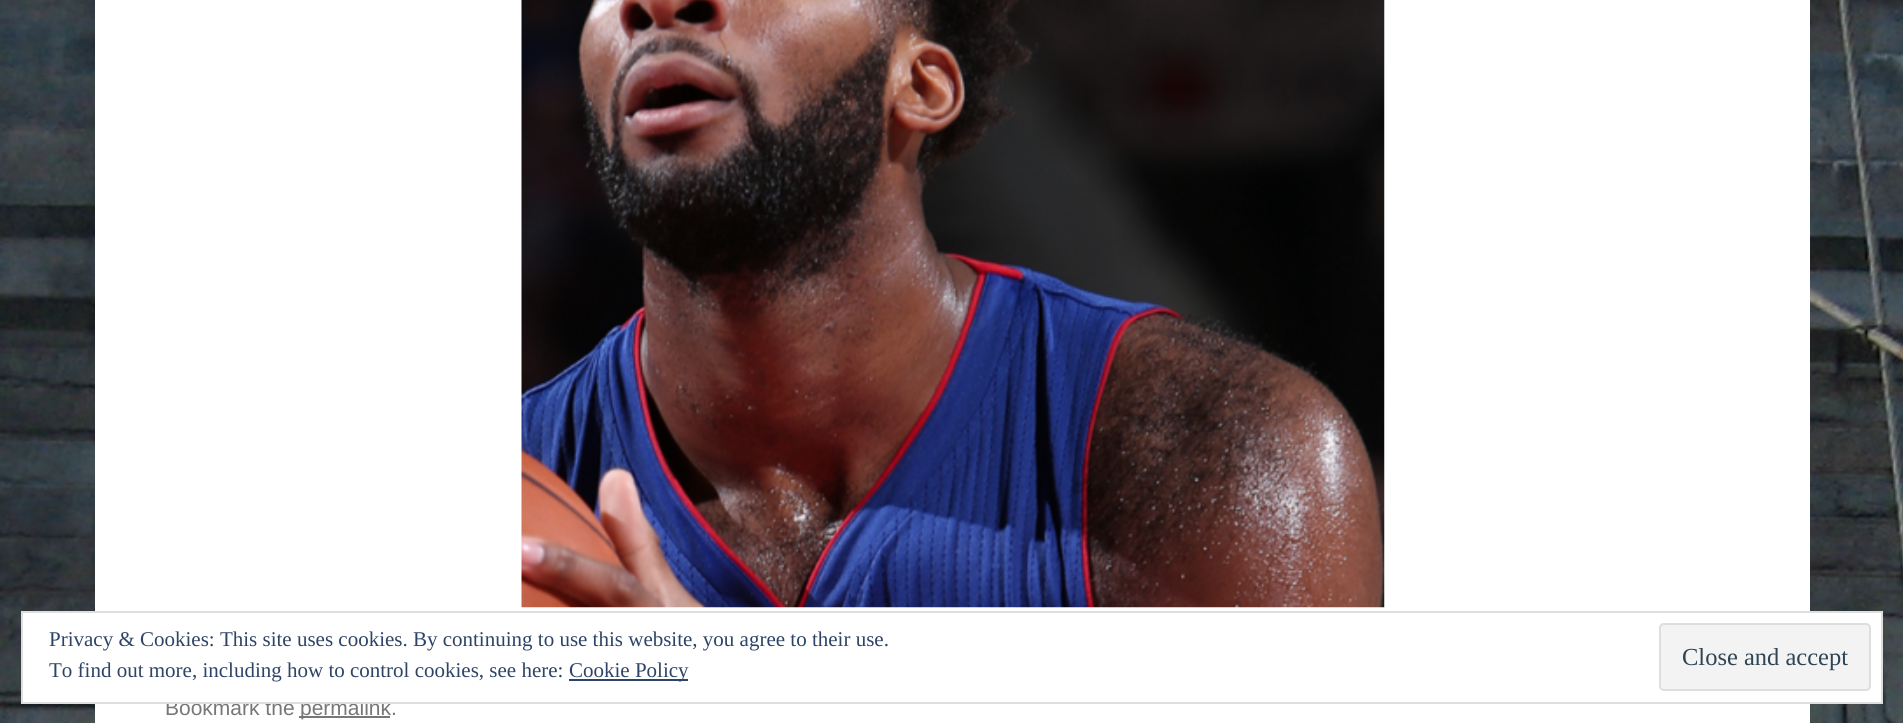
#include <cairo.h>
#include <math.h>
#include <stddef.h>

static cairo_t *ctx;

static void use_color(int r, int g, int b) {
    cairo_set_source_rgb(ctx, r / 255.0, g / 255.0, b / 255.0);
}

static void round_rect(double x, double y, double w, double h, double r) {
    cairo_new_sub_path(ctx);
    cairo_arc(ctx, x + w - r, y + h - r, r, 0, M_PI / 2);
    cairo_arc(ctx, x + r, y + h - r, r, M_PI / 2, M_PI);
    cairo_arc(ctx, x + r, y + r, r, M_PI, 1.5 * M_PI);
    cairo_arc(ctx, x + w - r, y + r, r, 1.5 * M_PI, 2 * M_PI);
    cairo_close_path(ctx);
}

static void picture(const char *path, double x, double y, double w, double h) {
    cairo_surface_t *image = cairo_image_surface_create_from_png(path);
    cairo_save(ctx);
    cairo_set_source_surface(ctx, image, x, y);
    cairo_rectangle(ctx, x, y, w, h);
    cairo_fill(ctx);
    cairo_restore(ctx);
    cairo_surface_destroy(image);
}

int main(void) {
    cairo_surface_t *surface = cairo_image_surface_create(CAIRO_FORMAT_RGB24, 1903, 723);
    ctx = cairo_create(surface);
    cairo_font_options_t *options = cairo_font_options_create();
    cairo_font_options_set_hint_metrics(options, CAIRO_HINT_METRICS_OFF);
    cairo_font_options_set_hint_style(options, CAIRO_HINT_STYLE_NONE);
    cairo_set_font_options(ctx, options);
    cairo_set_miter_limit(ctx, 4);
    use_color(255, 255, 255);
    cairo_paint(ctx);
    picture("img1.png", 0, 0, 1903, 723);
    use_color(255, 255, 255);
    cairo_rectangle(ctx, 95, 0, 1715, 723);
    cairo_fill(ctx);
    cairo_select_font_face(ctx, "Liberation Sans", CAIRO_FONT_SLANT_NORMAL, CAIRO_FONT_WEIGHT_NORMAL);
    cairo_set_font_size(ctx, 21);
    use_color(119, 119, 119);
    cairo_move_to(ctx, 165, 715);
    cairo_show_text(ctx, "Bookmark the");
    cairo_rectangle(ctx, 299, 716, 91, 2);
    cairo_fill(ctx);
    cairo_move_to(ctx, 300, 715);
    cairo_show_text(ctx, "permalink.");
    use_color(255, 255, 255);
    cairo_rectangle(ctx, 22, 612, 1860, 91);
    cairo_fill_preserve(ctx);
    use_color(222, 222, 222);
    cairo_stroke(ctx);
    cairo_select_font_face(ctx, "Liberation Serif", CAIRO_FONT_SLANT_NORMAL, CAIRO_FONT_WEIGHT_NORMAL);
    use_color(46, 68, 103);
    cairo_move_to(ctx, 49, 646);
    cairo_show_text(ctx, "Privacy & Cookies: This site uses cookies. By continuing to use this website, you agree to their use.");
    cairo_move_to(ctx, 49, 677);
    cairo_show_text(ctx, "To find out more, including how to control cookies, see here:");
    cairo_rectangle(ctx, 569, 679, 119, 2);
    cairo_fill(ctx);
    cairo_move_to(ctx, 569, 677);
    cairo_show_text(ctx, "Cookie Policy");
    use_color(243, 243, 243);
    round_rect(1660, 624, 210, 66, 4);
    cairo_fill_preserve(ctx);
    use_color(222, 222, 222);
    cairo_stroke(ctx);
    cairo_set_font_size(ctx, 24.5);
    use_color(46, 68, 83);
    cairo_move_to(ctx, 1682, 665);
    cairo_show_text(ctx, "Close and accept");
    picture("img2.png", 521, 0, 864, 608);
    cairo_surface_write_to_png(surface, "result.png");
    cairo_font_options_destroy(options);
    cairo_destroy(ctx);
    cairo_surface_destroy(surface);
    return 0;
}
